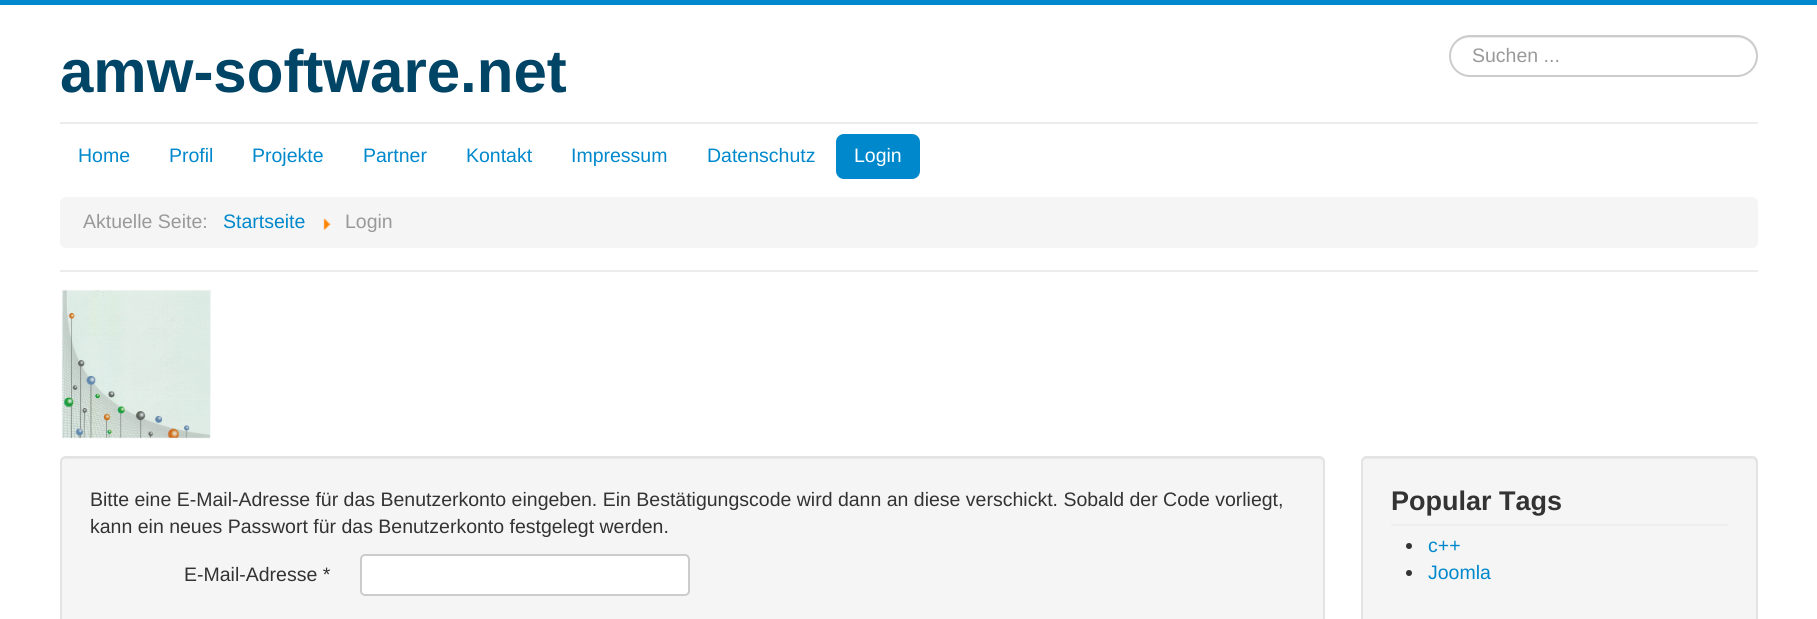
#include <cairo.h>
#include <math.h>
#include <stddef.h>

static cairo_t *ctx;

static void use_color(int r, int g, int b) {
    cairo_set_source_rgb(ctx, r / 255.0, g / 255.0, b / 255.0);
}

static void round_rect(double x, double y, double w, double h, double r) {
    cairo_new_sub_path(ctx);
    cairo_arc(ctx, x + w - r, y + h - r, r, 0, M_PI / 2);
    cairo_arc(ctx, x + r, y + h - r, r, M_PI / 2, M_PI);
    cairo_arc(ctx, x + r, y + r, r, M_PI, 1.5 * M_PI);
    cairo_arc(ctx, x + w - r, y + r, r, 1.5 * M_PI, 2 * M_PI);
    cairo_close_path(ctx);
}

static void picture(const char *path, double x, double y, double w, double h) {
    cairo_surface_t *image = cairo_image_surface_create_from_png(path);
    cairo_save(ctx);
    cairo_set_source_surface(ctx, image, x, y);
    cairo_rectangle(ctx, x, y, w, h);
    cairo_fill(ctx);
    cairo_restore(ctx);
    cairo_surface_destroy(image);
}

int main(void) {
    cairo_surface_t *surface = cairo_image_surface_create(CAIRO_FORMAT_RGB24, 1817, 619);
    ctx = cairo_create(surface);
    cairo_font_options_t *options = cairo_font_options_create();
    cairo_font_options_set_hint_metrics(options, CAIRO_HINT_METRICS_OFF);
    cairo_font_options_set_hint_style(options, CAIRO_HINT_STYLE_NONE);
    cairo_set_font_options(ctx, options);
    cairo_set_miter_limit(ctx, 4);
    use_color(255, 255, 255);
    cairo_paint(ctx);
    use_color(0, 136, 204);
    cairo_rectangle(ctx, 0, 0, 1817, 5);
    cairo_fill(ctx);
    cairo_select_font_face(ctx, "Liberation Sans", CAIRO_FONT_SLANT_NORMAL, CAIRO_FONT_WEIGHT_BOLD);
    cairo_set_font_size(ctx, 60);
    use_color(0, 68, 102);
    cairo_move_to(ctx, 60, 92);
    cairo_show_text(ctx, "amw-software.net");
    use_color(236, 236, 236);
    cairo_new_path(ctx);
    cairo_move_to(ctx, 1470, 38);
    cairo_line_to(ctx, 1737, 38);
    cairo_curve_to(ctx, 1748, 38, 1756, 46, 1756, 57);
    cairo_curve_to(ctx, 1756, 60, 1755, 63, 1754, 66);
    cairo_curve_to(ctx, 1756, 63, 1757, 59, 1757, 56);
    cairo_curve_to(ctx, 1757, 45, 1748, 36, 1738, 36);
    cairo_line_to(ctx, 1470, 36);
    cairo_curve_to(ctx, 1463, 36, 1456, 40, 1453, 46);
    cairo_curve_to(ctx, 1457, 41, 1463, 38, 1470, 38);
    cairo_close_path(ctx);
    cairo_fill(ctx);
    round_rect(1450, 36, 307, 40, 20);
    use_color(204, 204, 204);
    cairo_stroke(ctx);
    cairo_select_font_face(ctx, "Liberation Sans", CAIRO_FONT_SLANT_NORMAL, CAIRO_FONT_WEIGHT_NORMAL);
    cairo_set_font_size(ctx, 19.5);
    use_color(153, 153, 153);
    cairo_move_to(ctx, 1472, 62);
    cairo_show_text(ctx, "Suchen ...");
    use_color(236, 236, 236);
    cairo_rectangle(ctx, 60, 122, 1698, 2);
    cairo_fill(ctx);
    cairo_rectangle(ctx, 60, 270, 1698, 2);
    cairo_fill(ctx);
    use_color(0, 136, 204);
    cairo_move_to(ctx, 78, 162);
    cairo_show_text(ctx, "Home");
    cairo_move_to(ctx, 169, 162);
    cairo_show_text(ctx, "Profil");
    cairo_move_to(ctx, 252, 162);
    cairo_show_text(ctx, "Projekte");
    cairo_move_to(ctx, 363, 162);
    cairo_show_text(ctx, "Partner");
    cairo_move_to(ctx, 466, 162);
    cairo_show_text(ctx, "Kontakt");
    cairo_move_to(ctx, 571, 162);
    cairo_show_text(ctx, "Impressum");
    cairo_move_to(ctx, 707, 162);
    cairo_show_text(ctx, "Datenschutz");
    round_rect(836, 134, 84, 45, 8);
    cairo_fill(ctx);
    use_color(255, 255, 255);
    cairo_move_to(ctx, 854, 162);
    cairo_show_text(ctx, "Login");
    use_color(245, 245, 245);
    round_rect(60, 197, 1698, 51, 6);
    cairo_fill(ctx);
    use_color(153, 153, 153);
    cairo_move_to(ctx, 83, 228);
    cairo_show_text(ctx, "Aktuelle Seite:");
    use_color(0, 136, 204);
    cairo_move_to(ctx, 223, 228);
    cairo_show_text(ctx, "Startseite");
    picture("img1.png", 323, 218, 8, 12);
    use_color(153, 153, 153);
    cairo_move_to(ctx, 345, 228);
    cairo_show_text(ctx, "Login");
    picture("img2.png", 61, 289, 151, 150);
    use_color(245, 245, 245);
    round_rect(60, 456, 1265, 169, 6);
    cairo_fill(ctx);
    use_color(233, 233, 233);
    cairo_new_path(ctx);
    cairo_move_to(ctx, 66, 459);
    cairo_line_to(ctx, 1318, 459);
    cairo_curve_to(ctx, 1321, 459, 1323, 461, 1323, 464);
    cairo_curve_to(ctx, 1323, 461, 1321, 458, 1318, 458);
    cairo_line_to(ctx, 67, 458);
    cairo_curve_to(ctx, 64, 458, 62, 461, 62, 464);
    cairo_curve_to(ctx, 62, 461, 64, 459, 66, 459);
    cairo_close_path(ctx);
    cairo_fill(ctx);
    round_rect(61, 457, 1263, 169, 5);
    use_color(227, 227, 227);
    cairo_stroke(ctx);
    use_color(51, 51, 51);
    cairo_move_to(ctx, 90, 506);
    cairo_show_text(ctx, "Bitte eine E-Mail-Adresse für das Benutzerkonto eingeben. Ein Bestätigungscode wird dann an diese verschickt. Sobald der Code vorliegt,");
    cairo_move_to(ctx, 90, 533);
    cairo_show_text(ctx, "kann ein neues Passwort für das Benutzerkonto festgelegt werden.");
    cairo_move_to(ctx, 184, 581);
    cairo_show_text(ctx, "E-Mail-Adresse *");
    use_color(255, 255, 255);
    round_rect(360, 554, 330, 42, 5);
    cairo_fill(ctx);
    use_color(236, 236, 236);
    cairo_new_path(ctx);
    cairo_move_to(ctx, 364, 556);
    cairo_line_to(ctx, 686, 556);
    cairo_curve_to(ctx, 689, 556, 688, 570, 688, 571);
    cairo_line_to(ctx, 688, 593);
    cairo_curve_to(ctx, 689, 593, 689, 592, 689, 591);
    cairo_line_to(ctx, 689, 558);
    cairo_curve_to(ctx, 689, 556, 688, 555, 686, 555);
    cairo_line_to(ctx, 365, 555);
    cairo_curve_to(ctx, 363, 555, 362, 556, 362, 558);
    cairo_line_to(ctx, 362, 560);
    cairo_curve_to(ctx, 362, 558, 363, 556, 364, 556);
    cairo_close_path(ctx);
    cairo_fill(ctx);
    round_rect(361, 555, 328, 40, 4);
    use_color(204, 204, 204);
    cairo_stroke(ctx);
    use_color(245, 245, 245);
    round_rect(1361, 456, 397, 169, 6);
    cairo_fill(ctx);
    use_color(233, 233, 233);
    cairo_new_path(ctx);
    cairo_move_to(ctx, 1366, 459);
    cairo_line_to(ctx, 1752, 459);
    cairo_curve_to(ctx, 1754, 459, 1756, 461, 1756, 464);
    cairo_line_to(ctx, 1756, 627);
    cairo_curve_to(ctx, 1757, 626, 1757, 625, 1757, 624);
    cairo_line_to(ctx, 1757, 463);
    cairo_curve_to(ctx, 1757, 460, 1755, 458, 1752, 458);
    cairo_line_to(ctx, 1367, 458);
    cairo_curve_to(ctx, 1364, 458, 1362, 460, 1362, 463);
    cairo_line_to(ctx, 1362, 464);
    cairo_curve_to(ctx, 1362, 461, 1364, 459, 1366, 459);
    cairo_close_path(ctx);
    cairo_fill(ctx);
    round_rect(1362, 457, 395, 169, 5);
    use_color(227, 227, 227);
    cairo_stroke(ctx);
    use_color(238, 238, 238);
    cairo_rectangle(ctx, 1391, 524, 337, 2);
    cairo_fill(ctx);
    cairo_select_font_face(ctx, "Liberation Sans", CAIRO_FONT_SLANT_NORMAL, CAIRO_FONT_WEIGHT_BOLD);
    cairo_set_font_size(ctx, 27);
    use_color(51, 51, 51);
    cairo_move_to(ctx, 1391, 510);
    cairo_show_text(ctx, "Popular Tags");
    cairo_new_path(ctx);
    cairo_arc(ctx, 1409, 546, 3, 0, 2 * M_PI);
    cairo_fill(ctx);
    cairo_select_font_face(ctx, "Liberation Sans", CAIRO_FONT_SLANT_NORMAL, CAIRO_FONT_WEIGHT_NORMAL);
    cairo_set_font_size(ctx, 19.5);
    use_color(0, 136, 204);
    cairo_move_to(ctx, 1428, 552);
    cairo_show_text(ctx, "c++");
    use_color(51, 51, 51);
    cairo_new_path(ctx);
    cairo_arc(ctx, 1409, 573, 3, 0, 2 * M_PI);
    cairo_fill(ctx);
    use_color(0, 136, 204);
    cairo_move_to(ctx, 1428, 579);
    cairo_show_text(ctx, "Joomla");
    cairo_surface_write_to_png(surface, "result.png");
    cairo_font_options_destroy(options);
    cairo_destroy(ctx);
    cairo_surface_destroy(surface);
    return 0;
}
